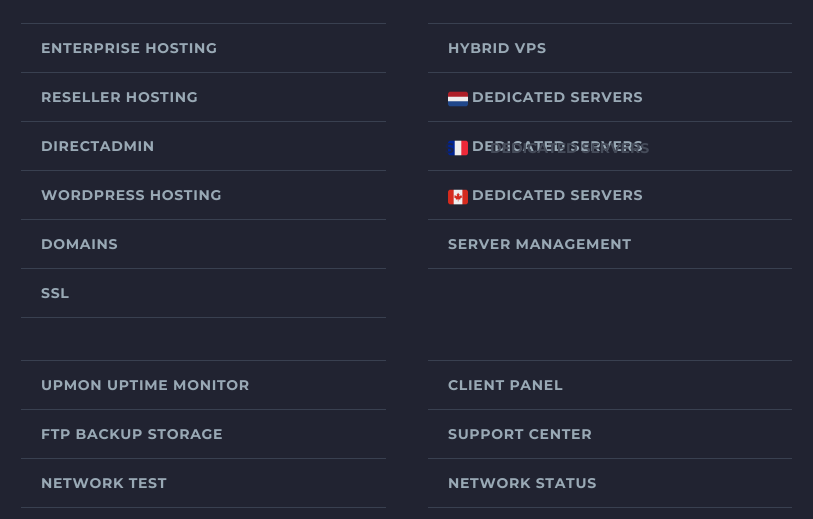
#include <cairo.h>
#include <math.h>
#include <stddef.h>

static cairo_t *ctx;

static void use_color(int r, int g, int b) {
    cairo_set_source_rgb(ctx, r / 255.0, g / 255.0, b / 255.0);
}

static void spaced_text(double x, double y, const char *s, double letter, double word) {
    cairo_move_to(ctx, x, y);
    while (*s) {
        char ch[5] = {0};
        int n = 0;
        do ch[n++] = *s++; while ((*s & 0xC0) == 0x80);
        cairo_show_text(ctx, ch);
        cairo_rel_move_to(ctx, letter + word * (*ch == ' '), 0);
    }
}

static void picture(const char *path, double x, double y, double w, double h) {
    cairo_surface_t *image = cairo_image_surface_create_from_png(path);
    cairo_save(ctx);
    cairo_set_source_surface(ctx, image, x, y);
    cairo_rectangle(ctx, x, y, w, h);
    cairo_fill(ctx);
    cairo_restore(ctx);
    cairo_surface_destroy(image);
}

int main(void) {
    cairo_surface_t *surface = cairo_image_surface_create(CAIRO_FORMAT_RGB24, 813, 519);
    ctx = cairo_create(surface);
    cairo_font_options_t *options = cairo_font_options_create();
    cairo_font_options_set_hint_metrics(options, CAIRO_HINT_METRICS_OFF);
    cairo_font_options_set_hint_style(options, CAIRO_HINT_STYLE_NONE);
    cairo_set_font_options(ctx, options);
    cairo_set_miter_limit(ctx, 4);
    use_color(33, 35, 49);
    cairo_paint(ctx);
    use_color(57, 64, 80);
    cairo_rectangle(ctx, 21, 317, 365, 1);
    cairo_fill(ctx);
    cairo_rectangle(ctx, 21, 23, 365, 1);
    cairo_fill(ctx);
    cairo_select_font_face(ctx, "Montserrat", CAIRO_FONT_SLANT_NORMAL, CAIRO_FONT_WEIGHT_BOLD);
    cairo_set_font_size(ctx, 14);
    use_color(153, 169, 181);
    spaced_text(41, 53, "ENTERPRISE HOSTING", 0.7, 0);
    use_color(57, 64, 80);
    cairo_rectangle(ctx, 21, 72, 365, 1);
    cairo_fill(ctx);
    use_color(153, 169, 181);
    spaced_text(41, 102, "RESELLER HOSTING", 0.7, 0);
    use_color(57, 64, 80);
    cairo_rectangle(ctx, 21, 121, 365, 1);
    cairo_fill(ctx);
    use_color(153, 169, 181);
    spaced_text(41, 151, "DIRECTADMIN", 0.7, 0);
    use_color(57, 64, 80);
    cairo_rectangle(ctx, 21, 170, 365, 1);
    cairo_fill(ctx);
    use_color(153, 169, 181);
    spaced_text(41, 200, "WORDPRESS HOSTING", 0.7, 0);
    use_color(57, 64, 80);
    cairo_rectangle(ctx, 21, 219, 365, 1);
    cairo_fill(ctx);
    use_color(153, 169, 181);
    spaced_text(41, 249, "DOMAINS", 0.7, 0);
    use_color(57, 64, 80);
    cairo_rectangle(ctx, 21, 268, 365, 1);
    cairo_fill(ctx);
    use_color(153, 169, 181);
    spaced_text(41, 298, "SSL", 0.7, 0);
    use_color(57, 64, 80);
    cairo_rectangle(ctx, 428, 268, 364, 1);
    cairo_fill(ctx);
    cairo_rectangle(ctx, 428, 23, 364, 1);
    cairo_fill(ctx);
    use_color(153, 169, 181);
    spaced_text(448, 53, "HYBRID VPS", 0.7, 0);
    use_color(57, 64, 80);
    cairo_rectangle(ctx, 428, 72, 364, 1);
    cairo_fill(ctx);
    picture("img1.png", 448, 91, 20, 16);
    use_color(153, 169, 181);
    spaced_text(472, 102, "DEDICATED SERVERS", 0.7, 0);
    use_color(57, 64, 80);
    cairo_rectangle(ctx, 428, 121, 364, 1);
    cairo_fill(ctx);
    picture("img2.png", 448, 140, 20, 16);
    use_color(153, 169, 181);
    spaced_text(472, 151, "DEDICATED SERVERS", 0.7, 0);
    use_color(57, 64, 80);
    cairo_rectangle(ctx, 428, 170, 364, 1);
    cairo_fill(ctx);
    picture("img3.png", 448, 189, 20, 16);
    use_color(153, 169, 181);
    spaced_text(472, 200, "DEDICATED SERVERS", 0.7, 0);
    use_color(57, 64, 80);
    cairo_rectangle(ctx, 428, 219, 364, 1);
    cairo_fill(ctx);
    use_color(153, 169, 181);
    spaced_text(448, 249, "SERVER MANAGEMENT", 0.7, 0);
    use_color(57, 64, 80);
    cairo_rectangle(ctx, 21, 360, 365, 1);
    cairo_fill(ctx);
    use_color(153, 169, 181);
    spaced_text(41, 390, "UPMON UPTIME MONITOR", 0.7, 0);
    use_color(57, 64, 80);
    cairo_rectangle(ctx, 21, 409, 365, 1);
    cairo_fill(ctx);
    use_color(153, 169, 181);
    spaced_text(41, 439, "FTP BACKUP STORAGE", 0.7, 0);
    use_color(57, 64, 80);
    cairo_rectangle(ctx, 21, 458, 365, 1);
    cairo_fill(ctx);
    use_color(153, 169, 181);
    spaced_text(41, 488, "NETWORK TEST", 0.7, 0);
    use_color(57, 64, 80);
    cairo_rectangle(ctx, 21, 507, 365, 1);
    cairo_fill(ctx);
    cairo_rectangle(ctx, 428, 360, 364, 1);
    cairo_fill(ctx);
    use_color(153, 169, 181);
    spaced_text(448, 390, "CLIENT PANEL", 0.7, 0);
    use_color(57, 64, 80);
    cairo_rectangle(ctx, 428, 409, 364, 1);
    cairo_fill(ctx);
    use_color(153, 169, 181);
    spaced_text(448, 439, "SUPPORT CENTER", 0.7, 0);
    use_color(57, 64, 80);
    cairo_rectangle(ctx, 428, 458, 364, 1);
    cairo_fill(ctx);
    use_color(153, 169, 181);
    spaced_text(448, 488, "NETWORK STATUS", 0.7, 0);
    use_color(57, 64, 80);
    cairo_rectangle(ctx, 428, 507, 364, 1);
    cairo_fill(ctx);
    use_color(25, 35, 74);
    cairo_move_to(ctx, 445, 153);
    cairo_show_text(ctx, "S");
    use_color(69, 75, 89);
    cairo_move_to(ctx, 490, 153);
    cairo_show_text(ctx, "DEDICATED SERVERS");
    cairo_surface_write_to_png(surface, "result.png");
    cairo_font_options_destroy(options);
    cairo_destroy(ctx);
    cairo_surface_destroy(surface);
    return 0;
}
